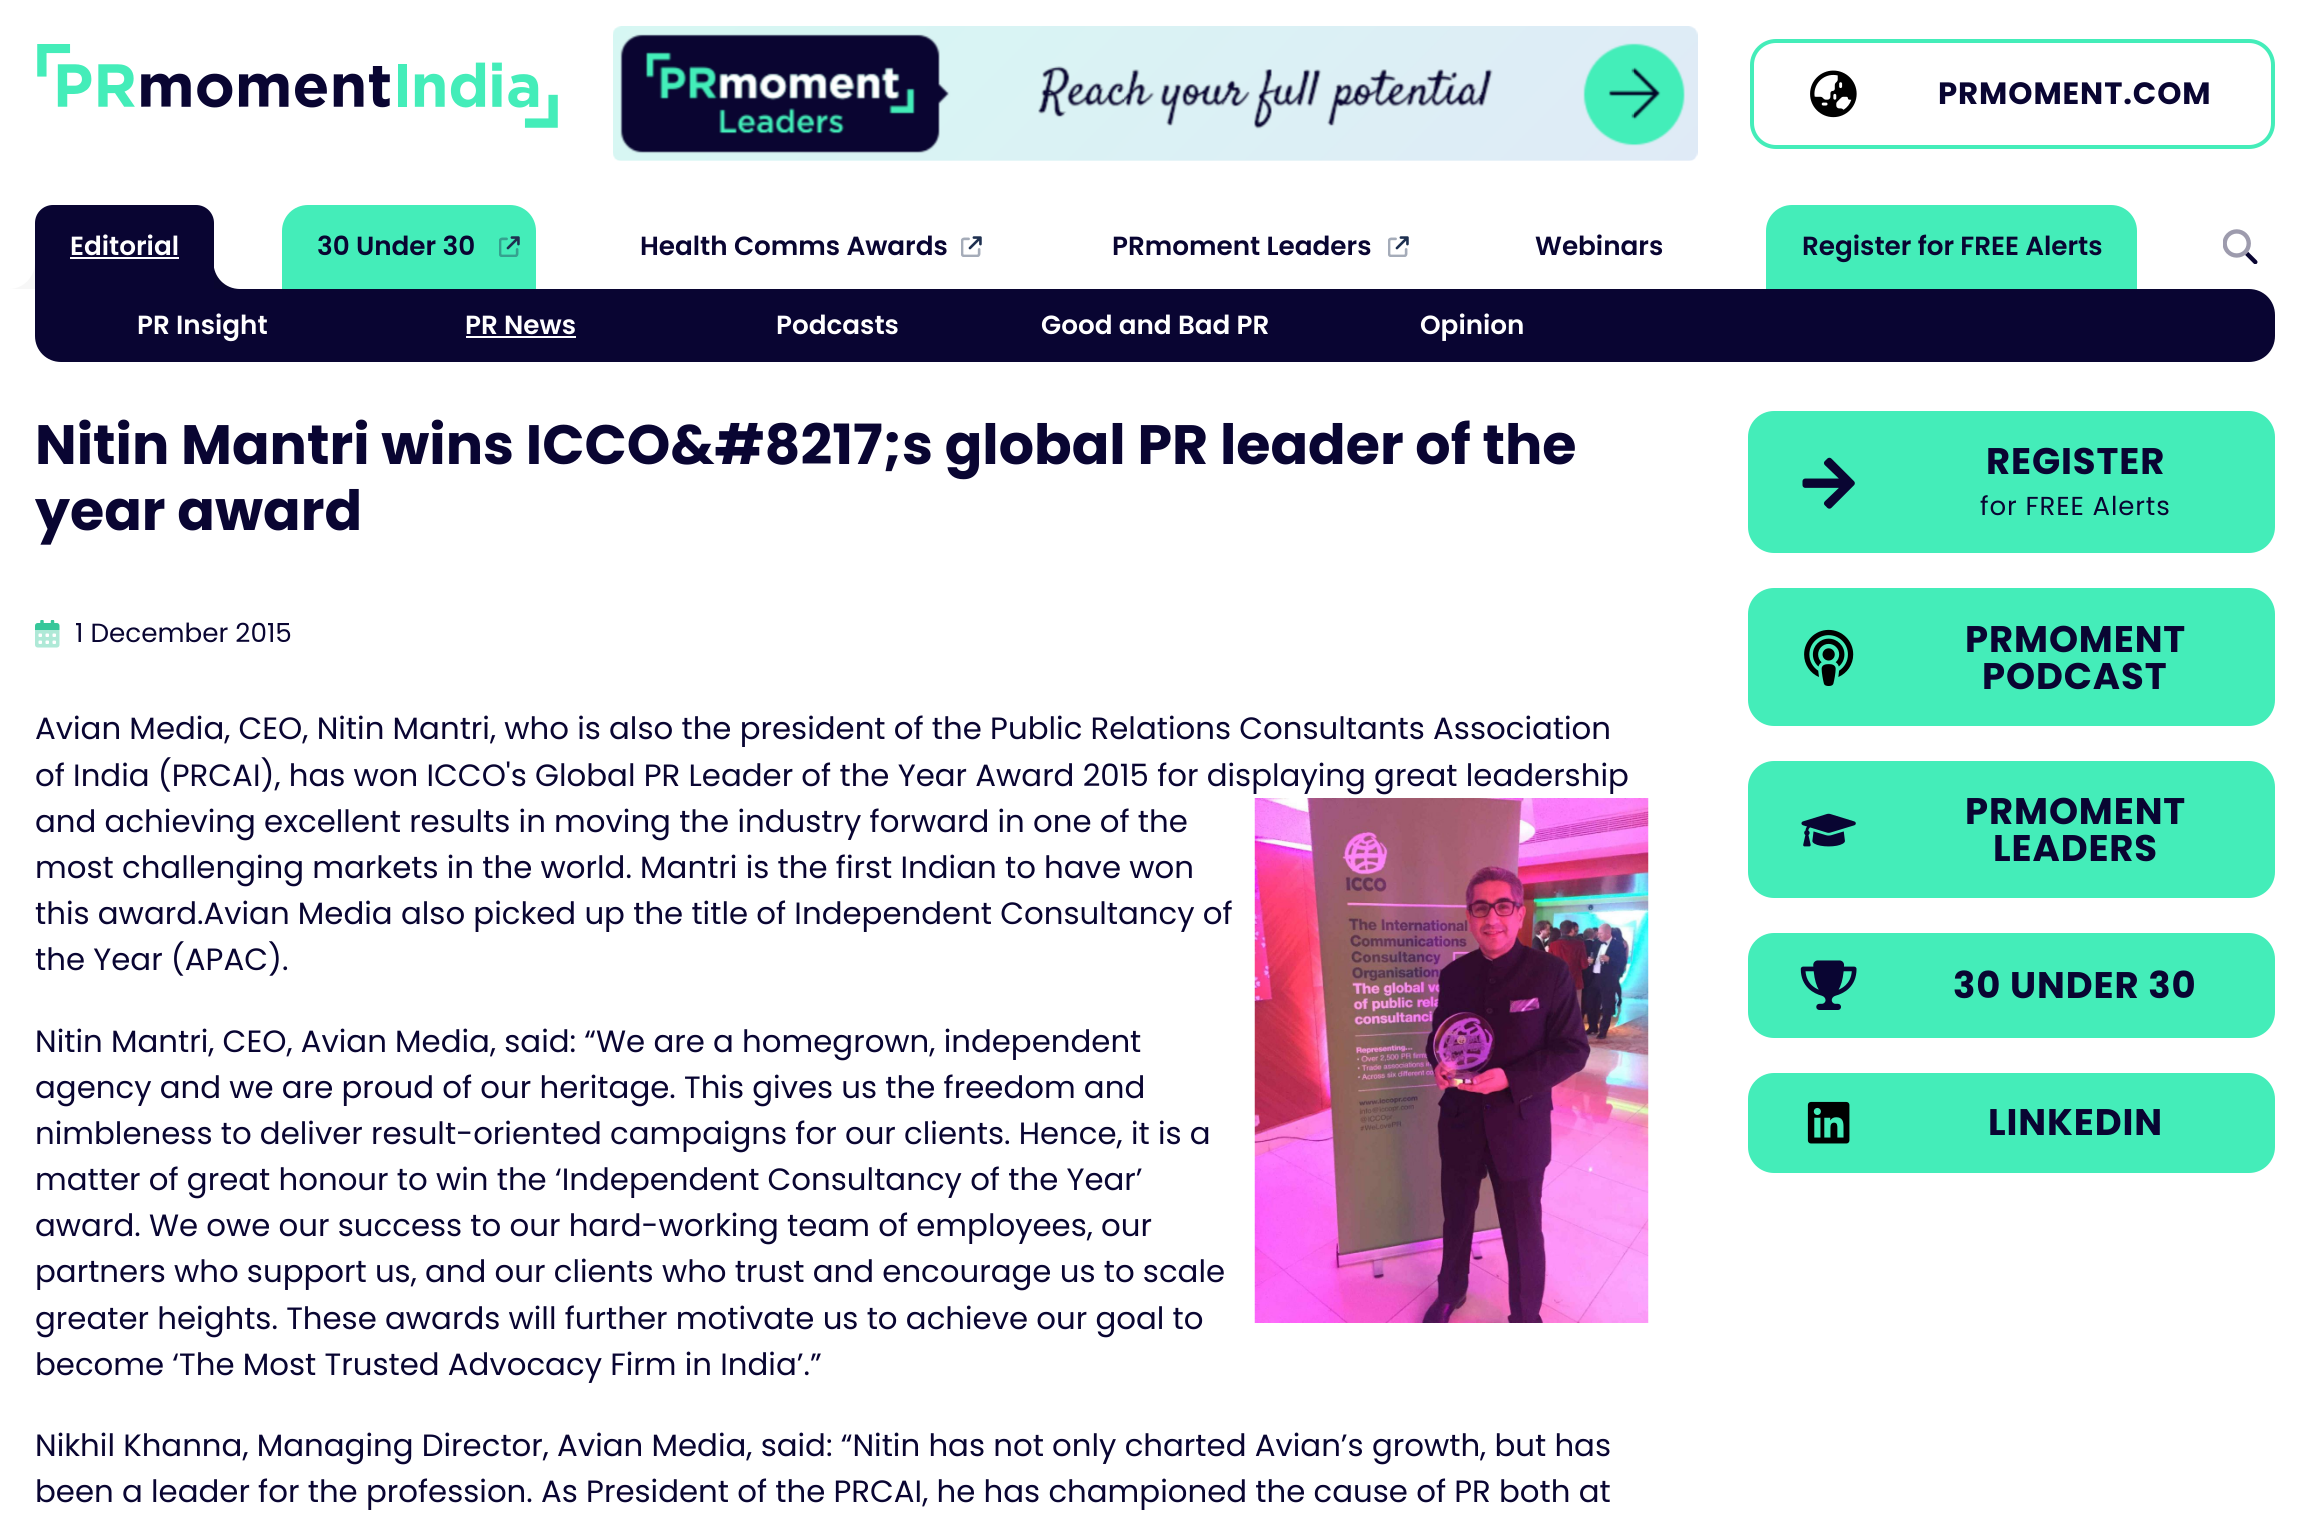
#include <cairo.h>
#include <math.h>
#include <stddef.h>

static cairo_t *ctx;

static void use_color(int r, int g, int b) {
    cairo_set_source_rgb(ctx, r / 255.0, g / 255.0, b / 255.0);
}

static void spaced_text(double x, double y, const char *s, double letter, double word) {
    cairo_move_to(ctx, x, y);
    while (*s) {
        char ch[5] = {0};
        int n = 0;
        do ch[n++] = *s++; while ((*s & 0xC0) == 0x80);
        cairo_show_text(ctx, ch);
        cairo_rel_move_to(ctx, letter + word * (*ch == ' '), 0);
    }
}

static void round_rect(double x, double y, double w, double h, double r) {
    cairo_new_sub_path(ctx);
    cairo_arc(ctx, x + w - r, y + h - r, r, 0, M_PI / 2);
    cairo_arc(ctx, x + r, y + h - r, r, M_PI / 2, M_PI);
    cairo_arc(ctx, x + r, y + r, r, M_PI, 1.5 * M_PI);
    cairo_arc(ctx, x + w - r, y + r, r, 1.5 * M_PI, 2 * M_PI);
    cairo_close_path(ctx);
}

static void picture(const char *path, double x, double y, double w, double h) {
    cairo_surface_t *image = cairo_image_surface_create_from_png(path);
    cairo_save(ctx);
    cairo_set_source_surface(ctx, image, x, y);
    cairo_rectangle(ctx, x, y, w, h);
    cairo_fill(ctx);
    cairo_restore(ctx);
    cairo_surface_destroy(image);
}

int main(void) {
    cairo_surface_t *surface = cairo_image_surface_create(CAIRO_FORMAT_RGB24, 2309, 1523);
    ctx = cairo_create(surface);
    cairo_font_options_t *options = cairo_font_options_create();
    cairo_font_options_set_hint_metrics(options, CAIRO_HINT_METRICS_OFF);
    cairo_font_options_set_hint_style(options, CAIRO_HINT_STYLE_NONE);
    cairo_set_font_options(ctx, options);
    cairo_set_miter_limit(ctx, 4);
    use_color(255, 255, 255);
    cairo_paint(ctx);
    picture("img1.png", 37, 44, 521, 84);
    picture("img2.png", 613, 26, 1085, 135);
    round_rect(1752, 41, 521, 106, 24);
    use_color(68, 237, 185);
    cairo_set_line_width(ctx, 4);
    cairo_stroke(ctx);
    picture("img3.png", 1810, 70, 47, 48);
    cairo_select_font_face(ctx, "Poppins", CAIRO_FONT_SLANT_NORMAL, CAIRO_FONT_WEIGHT_BOLD);
    cairo_set_font_size(ctx, 30.8);
    use_color(9, 5, 50);
    spaced_text(1938, 104, "PRMOMENT.COM", 0.9, 0);
    cairo_new_path(ctx);
    cairo_move_to(ctx, 53, 205);
    cairo_line_to(ctx, 196, 205);
    cairo_curve_to(ctx, 206, 205, 214, 213, 214, 223);
    cairo_line_to(ctx, 214, 289);
    cairo_line_to(ctx, 35, 289);
    cairo_line_to(ctx, 35, 223);
    cairo_curve_to(ctx, 35, 213, 43, 205, 53, 205);
    cairo_close_path(ctx);
    cairo_fill(ctx);
    cairo_select_font_face(ctx, "Poppins SemiBold", CAIRO_FONT_SLANT_NORMAL, CAIRO_FONT_WEIGHT_NORMAL);
    cairo_set_font_size(ctx, 26.25);
    use_color(255, 255, 255);
    cairo_move_to(ctx, 70, 255);
    cairo_show_text(ctx, "Editorial");
    cairo_rectangle(ctx, 70, 257, 109, 2);
    cairo_fill(ctx);
    use_color(247, 247, 247);
    cairo_new_path(ctx);
    cairo_move_to(ctx, 9, 289);
    cairo_line_to(ctx, 35, 289);
    cairo_line_to(ctx, 35, 262.5);
    cairo_curve_to(ctx, 35, 277, 23, 289, 9, 289);
    cairo_close_path(ctx);
    cairo_fill(ctx);
    cairo_save(ctx);
    cairo_rectangle(ctx, 214, 263, 26, 26);
    cairo_clip(ctx);
    use_color(9, 6, 47);
    cairo_new_path(ctx);
    cairo_move_to(ctx, 213.5, 262.5);
    cairo_line_to(ctx, 213.5, 289);
    cairo_line_to(ctx, 240, 289);
    cairo_curve_to(ctx, 225, 289, 213.5, 277, 213.5, 262.5);
    cairo_close_path(ctx);
    cairo_fill(ctx);
    cairo_restore(ctx);
    use_color(9, 5, 50);
    cairo_new_path(ctx);
    cairo_move_to(ctx, 35, 289);
    cairo_line_to(ctx, 2249, 289);
    cairo_curve_to(ctx, 2263.5, 289, 2275, 300.5, 2275, 315);
    cairo_line_to(ctx, 2275, 336);
    cairo_curve_to(ctx, 2275, 350.5, 2263.5, 362, 2249, 362);
    cairo_line_to(ctx, 61, 362);
    cairo_curve_to(ctx, 46.5, 362, 35, 350.5, 35, 336);
    cairo_close_path(ctx);
    cairo_fill(ctx);
    use_color(255, 255, 255);
    cairo_move_to(ctx, 137, 334);
    cairo_show_text(ctx, "PR Insight");
    cairo_move_to(ctx, 465, 334);
    cairo_show_text(ctx, "PR News");
    cairo_rectangle(ctx, 466, 336, 110, 2);
    cairo_fill(ctx);
    cairo_move_to(ctx, 776, 334);
    cairo_show_text(ctx, "Podcasts");
    cairo_move_to(ctx, 1041, 334);
    cairo_show_text(ctx, "Good and Bad PR");
    cairo_move_to(ctx, 1420, 334);
    cairo_show_text(ctx, "Opinion");
    use_color(9, 5, 50);
    cairo_move_to(ctx, 1535, 255);
    cairo_show_text(ctx, "Webinars");
    use_color(68, 237, 185);
    cairo_new_path(ctx);
    cairo_move_to(ctx, 1792, 205);
    cairo_line_to(ctx, 2111, 205);
    cairo_curve_to(ctx, 2125.5, 205, 2137, 216.5, 2137, 231);
    cairo_line_to(ctx, 2137, 289);
    cairo_line_to(ctx, 1766, 289);
    cairo_line_to(ctx, 1766, 231);
    cairo_curve_to(ctx, 1766, 216.5, 1777.5, 205, 1792, 205);
    cairo_close_path(ctx);
    cairo_fill(ctx);
    use_color(9, 5, 50);
    cairo_move_to(ctx, 1802, 255);
    cairo_show_text(ctx, "Register for FREE Alerts");
    picture("img4.png", 2223, 229, 35, 35);
    use_color(68, 237, 185);
    cairo_new_path(ctx);
    cairo_move_to(ctx, 308, 205);
    cairo_line_to(ctx, 510, 205);
    cairo_curve_to(ctx, 524.5, 205, 536, 216.5, 536, 231);
    cairo_line_to(ctx, 536, 289);
    cairo_line_to(ctx, 282, 289);
    cairo_line_to(ctx, 282, 231);
    cairo_curve_to(ctx, 282, 216.5, 293.5, 205, 308, 205);
    cairo_close_path(ctx);
    cairo_fill(ctx);
    picture("img5.png", 499, 236, 21, 21);
    use_color(9, 5, 50);
    cairo_move_to(ctx, 317, 255);
    cairo_show_text(ctx, "30 Under 30");
    picture("img6.png", 961, 236, 21, 21);
    cairo_move_to(ctx, 640, 255);
    cairo_show_text(ctx, "Health Comms Awards");
    picture("img6.png", 1388, 236, 21, 21);
    cairo_move_to(ctx, 1112, 255);
    cairo_show_text(ctx, "PRmoment Leaders");
    cairo_select_font_face(ctx, "Poppins", CAIRO_FONT_SLANT_NORMAL, CAIRO_FONT_WEIGHT_BOLD);
    cairo_set_font_size(ctx, 55.45);
    cairo_move_to(ctx, 35, 464);
    cairo_show_text(ctx, "Nitin Mantri wins ICCO&#8217;s global PR leader of the");
    cairo_move_to(ctx, 35, 530);
    cairo_show_text(ctx, "year award");
    picture("img7.png", 35, 620, 25, 28);
    cairo_select_font_face(ctx, "Poppins", CAIRO_FONT_SLANT_NORMAL, CAIRO_FONT_WEIGHT_NORMAL);
    cairo_set_font_size(ctx, 26.25);
    cairo_move_to(ctx, 75, 642);
    cairo_show_text(ctx, "1 December 2015");
    cairo_set_font_size(ctx, 30.8);
    cairo_move_to(ctx, 35, 739);
    cairo_show_text(ctx, "Avian Media, CEO, Nitin Mantri, who is also the president of the Public Relations Consultants Association");
    cairo_move_to(ctx, 35, 786);
    cairo_show_text(ctx, "of India (PRCAI), has won ICCO's Global PR Leader of the Year Award 2015 for displaying great leadership");
    cairo_move_to(ctx, 35, 832);
    cairo_show_text(ctx, "and achieving excellent results in moving the industry forward in one of the");
    picture("img8.png", 1254, 798, 395, 525);
    cairo_move_to(ctx, 35, 878);
    cairo_show_text(ctx, "most challenging markets in the world. Mantri is the first Indian to have won");
    cairo_move_to(ctx, 35, 924);
    cairo_show_text(ctx, "this award.Avian Media also picked up the title of Independent Consultancy of");
    cairo_move_to(ctx, 35, 970);
    cairo_show_text(ctx, "the Year (APAC).");
    cairo_move_to(ctx, 35, 1052);
    cairo_show_text(ctx, "Nitin Mantri, CEO, Avian Media, said: “We are a homegrown, independent");
    cairo_move_to(ctx, 35, 1098);
    cairo_show_text(ctx, "agency and we are proud of our heritage. This gives us the freedom and");
    cairo_move_to(ctx, 35, 1144);
    cairo_show_text(ctx, "nimbleness to deliver result-oriented campaigns for our clients. Hence, it is a");
    cairo_move_to(ctx, 35, 1190);
    cairo_show_text(ctx, "matter of great honour to win the ‘Independent Consultancy of the Year’");
    cairo_move_to(ctx, 35, 1236);
    cairo_show_text(ctx, "award. We owe our success to our hard-working team of employees, our");
    cairo_move_to(ctx, 35, 1282);
    cairo_show_text(ctx, "partners who support us, and our clients who trust and encourage us to scale");
    cairo_move_to(ctx, 35, 1329);
    cairo_show_text(ctx, "greater heights. These awards will further motivate us to achieve our goal to");
    cairo_move_to(ctx, 35, 1375);
    cairo_show_text(ctx, "become ‘The Most Trusted Advocacy Firm in India’.”");
    cairo_move_to(ctx, 35, 1456);
    cairo_show_text(ctx, "Nikhil Khanna, Managing Director, Avian Media, said: “Nitin has not only charted Avian’s growth, but has");
    cairo_move_to(ctx, 35, 1502);
    cairo_show_text(ctx, "been a leader for the profession. As President of the PRCAI, he has championed the cause of PR both at");
    use_color(68, 237, 185);
    round_rect(1748, 411, 527, 142, 26);
    cairo_fill(ctx);
    picture("img9.png", 1802, 457, 53, 52);
    cairo_select_font_face(ctx, "Poppins", CAIRO_FONT_SLANT_NORMAL, CAIRO_FONT_WEIGHT_BOLD);
    cairo_set_font_size(ctx, 37);
    use_color(9, 5, 50);
    spaced_text(1986, 474, "REGISTER", 0.9, 0);
    cairo_select_font_face(ctx, "Poppins", CAIRO_FONT_SLANT_NORMAL, CAIRO_FONT_WEIGHT_NORMAL);
    cairo_set_font_size(ctx, 26);
    spaced_text(1980, 515, "for FREE Alerts", 0.9, 0);
    use_color(68, 237, 185);
    round_rect(1748, 588, 527, 138, 26);
    cairo_fill(ctx);
    picture("img10.png", 1804, 629, 50, 57);
    cairo_select_font_face(ctx, "Poppins", CAIRO_FONT_SLANT_NORMAL, CAIRO_FONT_WEIGHT_BOLD);
    cairo_set_font_size(ctx, 37);
    use_color(9, 5, 50);
    spaced_text(1965, 652, "PRMOMENT", 0.9, 0);
    spaced_text(1982, 689, "PODCAST", 0.9, 0);
    use_color(68, 237, 185);
    round_rect(1748, 761, 527, 137, 26);
    cairo_fill(ctx);
    picture("img11.png", 1801, 813, 55, 34);
    use_color(9, 5, 50);
    spaced_text(1965, 824, "PRMOMENT", 0.9, 0);
    spaced_text(1993, 861, "LEADERS", 0.9, 0);
    use_color(68, 237, 185);
    round_rect(1748, 933, 527, 105, 26);
    cairo_fill(ctx);
    picture("img12.png", 1800, 960, 57, 50);
    use_color(9, 5, 50);
    spaced_text(1953, 998, "30 UNDER 30", 0.9, 0);
    use_color(68, 237, 185);
    round_rect(1748, 1073, 527, 100, 26);
    cairo_fill(ctx);
    picture("img13.png", 1807, 1101, 43, 43);
    use_color(9, 5, 50);
    spaced_text(1988, 1135, "LINKEDIN", 0.9, 0);
    cairo_surface_write_to_png(surface, "result.png");
    cairo_font_options_destroy(options);
    cairo_destroy(ctx);
    cairo_surface_destroy(surface);
    return 0;
}
